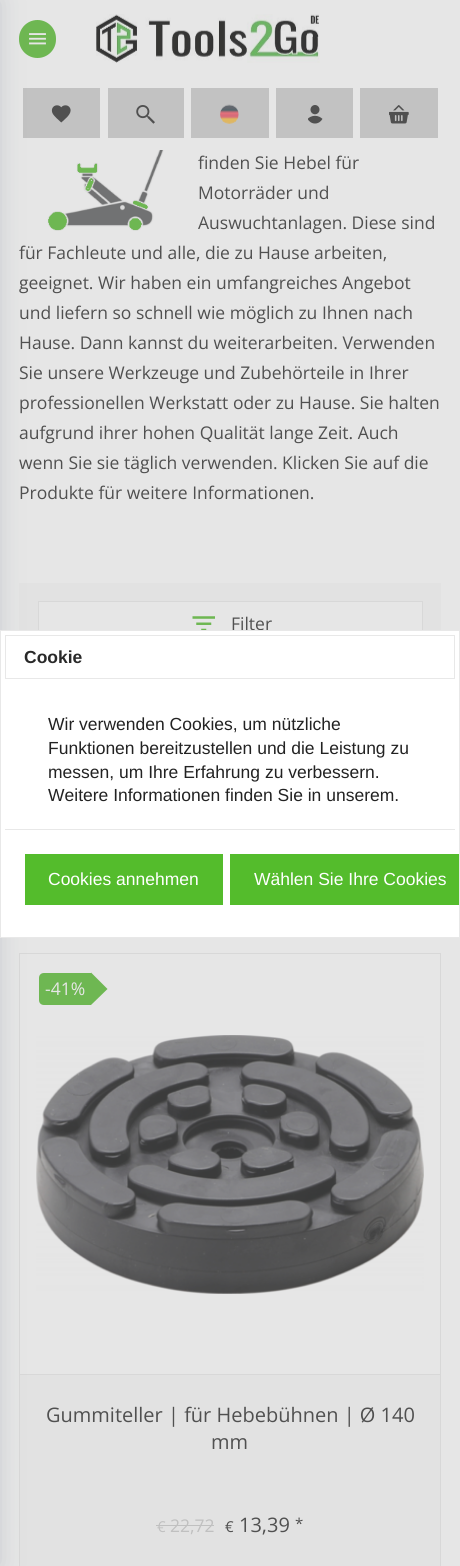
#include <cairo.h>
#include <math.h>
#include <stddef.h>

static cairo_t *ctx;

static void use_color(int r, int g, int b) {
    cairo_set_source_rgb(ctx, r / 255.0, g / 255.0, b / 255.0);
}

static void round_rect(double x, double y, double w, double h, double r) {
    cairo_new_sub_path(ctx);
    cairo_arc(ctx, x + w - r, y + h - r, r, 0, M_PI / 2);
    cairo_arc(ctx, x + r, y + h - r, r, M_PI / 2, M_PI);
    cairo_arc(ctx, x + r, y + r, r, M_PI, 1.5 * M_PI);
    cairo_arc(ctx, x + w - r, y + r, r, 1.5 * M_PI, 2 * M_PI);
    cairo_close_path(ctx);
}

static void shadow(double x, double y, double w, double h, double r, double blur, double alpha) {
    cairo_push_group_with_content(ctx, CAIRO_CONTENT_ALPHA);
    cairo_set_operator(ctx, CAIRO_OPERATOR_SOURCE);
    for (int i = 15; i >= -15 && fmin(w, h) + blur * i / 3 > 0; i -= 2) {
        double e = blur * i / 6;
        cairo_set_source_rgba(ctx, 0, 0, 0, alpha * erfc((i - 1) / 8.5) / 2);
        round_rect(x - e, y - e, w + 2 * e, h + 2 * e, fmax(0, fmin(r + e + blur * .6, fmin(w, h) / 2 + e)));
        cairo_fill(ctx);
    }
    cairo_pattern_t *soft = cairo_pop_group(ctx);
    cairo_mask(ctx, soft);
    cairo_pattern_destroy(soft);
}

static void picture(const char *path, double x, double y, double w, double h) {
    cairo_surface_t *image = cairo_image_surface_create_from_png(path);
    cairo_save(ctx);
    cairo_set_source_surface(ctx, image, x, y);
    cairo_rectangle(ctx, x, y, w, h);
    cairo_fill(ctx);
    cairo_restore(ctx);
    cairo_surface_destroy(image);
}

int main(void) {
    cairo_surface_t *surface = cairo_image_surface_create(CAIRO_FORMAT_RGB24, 460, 1566);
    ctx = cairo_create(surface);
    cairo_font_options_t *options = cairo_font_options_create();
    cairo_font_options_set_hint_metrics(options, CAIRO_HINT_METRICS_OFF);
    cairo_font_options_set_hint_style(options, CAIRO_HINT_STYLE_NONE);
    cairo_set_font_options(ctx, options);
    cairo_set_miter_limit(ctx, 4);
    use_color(230, 230, 230);
    cairo_paint(ctx);
    use_color(110, 183, 82);
    round_rect(19, 20, 37, 38, 18.5);
    cairo_fill(ctx);
    picture("img1.png", 29, 33, 17, 12);
    picture("img2.png", 96, 14, 224, 49);
    use_color(194, 194, 194);
    cairo_rectangle(ctx, 23, 88, 77, 50);
    cairo_fill(ctx);
    picture("img3.png", 51, 105, 20, 18);
    cairo_rectangle(ctx, 108, 88, 76, 50);
    cairo_fill(ctx);
    picture("img4.png", 136, 105, 19, 19);
    cairo_rectangle(ctx, 191, 88, 78, 50);
    cairo_fill(ctx);
    picture("img5.png", 220, 104, 19, 20);
    cairo_rectangle(ctx, 276, 88, 77, 50);
    cairo_fill(ctx);
    picture("img6.png", 308, 105, 15, 19);
    cairo_rectangle(ctx, 360, 88, 78, 50);
    cairo_fill(ctx);
    picture("img7.png", 389, 105, 20, 19);
    use_color(226, 226, 226);
    cairo_rectangle(ctx, 19, 583, 422, 47);
    cairo_fill(ctx);
    use_color(230, 230, 230);
    cairo_rectangle(ctx, 39, 602, 383, 28);
    cairo_fill(ctx);
    cairo_rectangle(ctx, 38.5, 601.5, 384, 44);
    use_color(216, 216, 216);
    cairo_set_line_width(ctx, 1);
    cairo_stroke(ctx);
    cairo_rectangle(ctx, 19.5, 953.5, 421, 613);
    cairo_stroke(ctx);
    cairo_rectangle(ctx, 20, 1374, 420, 1);
    cairo_fill(ctx);
    picture("img10.png", 36, 1035, 388, 259);
    use_color(226, 226, 226);
    cairo_rectangle(ctx, 20, 1375, 420, 191);
    cairo_fill(ctx);
    use_color(86, 96, 118);
    shadow(-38, 0, 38, 1566, 0, 12.5, 0.2);
    picture("img8.png", 47, 150, 118, 81);
    cairo_select_font_face(ctx, "Open Sans", CAIRO_FONT_SLANT_NORMAL, CAIRO_FONT_WEIGHT_NORMAL);
    cairo_set_font_size(ctx, 17.5);
    use_color(80, 80, 80);
    cairo_move_to(ctx, 198, 169);
    cairo_show_text(ctx, "finden Sie Hebel für");
    cairo_move_to(ctx, 198, 199);
    cairo_show_text(ctx, "Motorräder und");
    cairo_move_to(ctx, 198, 229);
    cairo_show_text(ctx, "Auswuchtanlagen. Diese sind");
    cairo_move_to(ctx, 19, 259);
    cairo_show_text(ctx, "für Fachleute und alle, die zu Hause arbeiten,");
    cairo_move_to(ctx, 19, 289);
    cairo_show_text(ctx, "geeignet. Wir haben ein umfangreiches Angebot");
    cairo_move_to(ctx, 19, 319);
    cairo_show_text(ctx, "und liefern so schnell wie möglich zu Ihnen nach");
    cairo_move_to(ctx, 19, 349);
    cairo_show_text(ctx, "Hause. Dann kannst du weiterarbeiten. Verwenden");
    cairo_move_to(ctx, 19, 379);
    cairo_show_text(ctx, "Sie unsere Werkzeuge und Zubehörteile in Ihrer");
    cairo_move_to(ctx, 19, 409);
    cairo_show_text(ctx, "professionellen Werkstatt oder zu Hause. Sie halten");
    cairo_move_to(ctx, 19, 439);
    cairo_show_text(ctx, "aufgrund ihrer hohen Qualität lange Zeit. Auch");
    cairo_move_to(ctx, 19, 469);
    cairo_show_text(ctx, "wenn Sie sie täglich verwenden. Klicken Sie auf die");
    cairo_move_to(ctx, 19, 499);
    cairo_show_text(ctx, "Produkte für weitere Informationen.");
    picture("img9.png", 192, 616, 23, 14);
    cairo_move_to(ctx, 231, 630);
    cairo_show_text(ctx, "Filter");
    use_color(110, 183, 82);
    cairo_new_path(ctx);
    cairo_move_to(ctx, 44, 973);
    cairo_line_to(ctx, 91, 973);
    cairo_line_to(ctx, 91, 1005);
    cairo_line_to(ctx, 44, 1005);
    cairo_curve_to(ctx, 41, 1005, 39, 1003, 39, 1000);
    cairo_line_to(ctx, 39, 978);
    cairo_curve_to(ctx, 39, 975, 41, 973, 44, 973);
    cairo_close_path(ctx);
    cairo_fill(ctx);
    use_color(230, 230, 230);
    cairo_move_to(ctx, 45, 995);
    cairo_show_text(ctx, "-41%");
    use_color(110, 183, 82);
    cairo_new_path(ctx);
    cairo_move_to(ctx, 91, 1005);
    cairo_line_to(ctx, 91, 972.5);
    cairo_line_to(ctx, 107.5, 989);
    cairo_close_path(ctx);
    cairo_fill(ctx);
    cairo_set_font_size(ctx, 20);
    use_color(80, 80, 80);
    cairo_move_to(ctx, 46, 1422);
    cairo_show_text(ctx, "Gummiteller | für Hebebühnen | Ø 140");
    cairo_move_to(ctx, 211, 1449);
    cairo_show_text(ctx, "mm");
    cairo_set_font_size(ctx, 15);
    use_color(192, 192, 192);
    cairo_move_to(ctx, 157, 1532);
    cairo_show_text(ctx, "€");
    cairo_rectangle(ctx, 156, 1525, 9, 1);
    cairo_fill(ctx);
    cairo_set_font_size(ctx, 17.5);
    cairo_move_to(ctx, 170, 1532);
    cairo_show_text(ctx, "22,72");
    cairo_rectangle(ctx, 165, 1525, 49, 1);
    cairo_fill(ctx);
    cairo_set_font_size(ctx, 15);
    use_color(80, 80, 80);
    cairo_move_to(ctx, 225, 1532);
    cairo_show_text(ctx, "€");
    cairo_set_font_size(ctx, 20);
    cairo_move_to(ctx, 239, 1532);
    cairo_show_text(ctx, "13,39");
    cairo_set_font_size(ctx, 15);
    cairo_move_to(ctx, 295, 1529);
    cairo_show_text(ctx, "*");
    use_color(255, 255, 255);
    cairo_rectangle(ctx, 0.5, 630.5, 459, 307);
    cairo_fill_preserve(ctx);
    use_color(232, 232, 232);
    cairo_stroke(ctx);
    cairo_rectangle(ctx, 5.5, 635.5, 449, 43);
    cairo_stroke(ctx);
    cairo_select_font_face(ctx, "Liberation Sans", CAIRO_FONT_SLANT_NORMAL, CAIRO_FONT_WEIGHT_BOLD);
    cairo_set_font_size(ctx, 17.5);
    use_color(41, 41, 41);
    cairo_move_to(ctx, 24, 663);
    cairo_show_text(ctx, "Cookie");
    cairo_select_font_face(ctx, "Liberation Sans", CAIRO_FONT_SLANT_NORMAL, CAIRO_FONT_WEIGHT_NORMAL);
    use_color(34, 34, 34);
    cairo_move_to(ctx, 48, 730);
    cairo_show_text(ctx, "Wir verwenden Cookies, um nützliche");
    cairo_move_to(ctx, 48, 754);
    cairo_show_text(ctx, "Funktionen bereitzustellen und die Leistung zu");
    cairo_move_to(ctx, 48, 778);
    cairo_show_text(ctx, "messen, um Ihre Erfahrung zu verbessern.");
    cairo_move_to(ctx, 48, 801);
    cairo_show_text(ctx, "Weitere Informationen finden Sie in unserem.");
    use_color(232, 232, 232);
    cairo_rectangle(ctx, 5, 829, 450, 1);
    cairo_fill(ctx);
    use_color(84, 188, 44);
    cairo_rectangle(ctx, 25, 854, 198, 51);
    cairo_fill(ctx);
    use_color(255, 255, 255);
    cairo_move_to(ctx, 48, 885);
    cairo_show_text(ctx, "Cookies annehmen");
    use_color(84, 188, 44);
    cairo_rectangle(ctx, 230, 854, 229, 51);
    cairo_fill(ctx);
    use_color(255, 255, 255);
    cairo_move_to(ctx, 254, 885);
    cairo_show_text(ctx, "Wählen Sie Ihre Cookies");
    cairo_surface_write_to_png(surface, "result.png");
    cairo_font_options_destroy(options);
    cairo_destroy(ctx);
    cairo_surface_destroy(surface);
    return 0;
}
